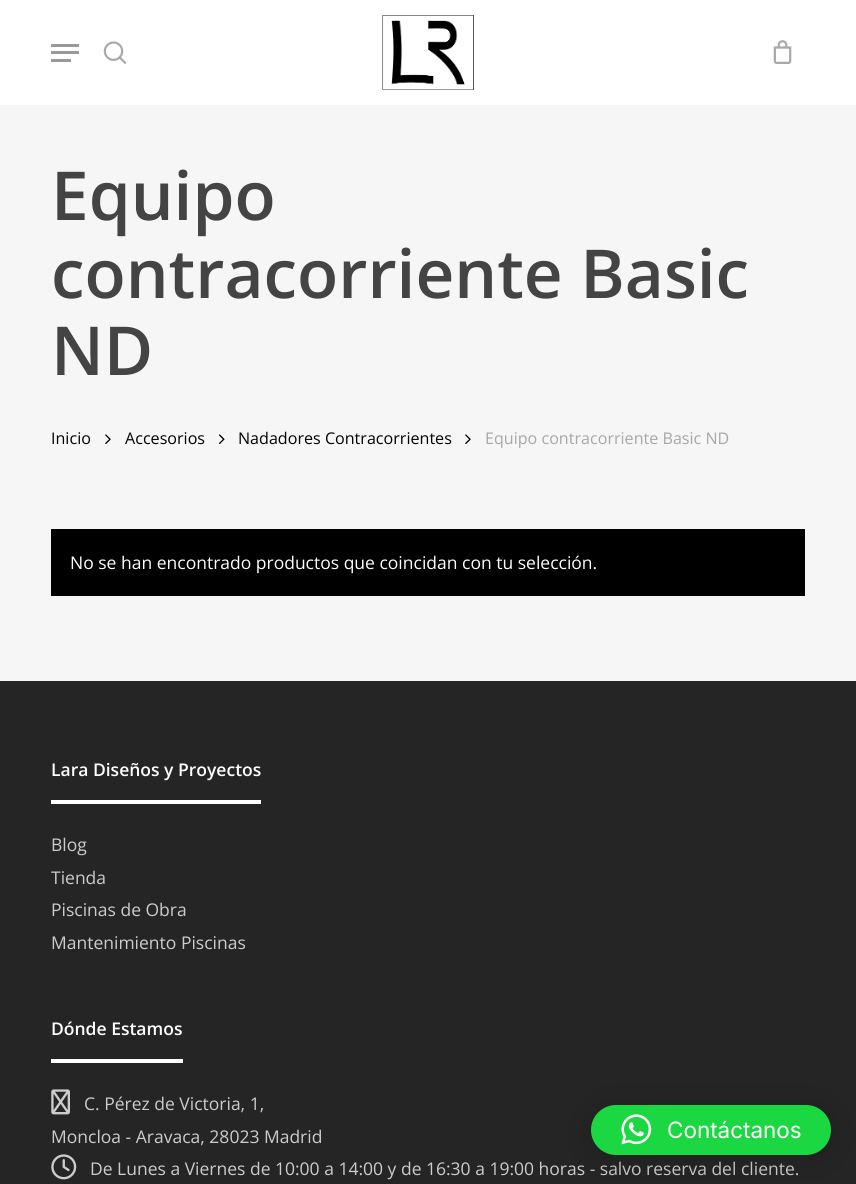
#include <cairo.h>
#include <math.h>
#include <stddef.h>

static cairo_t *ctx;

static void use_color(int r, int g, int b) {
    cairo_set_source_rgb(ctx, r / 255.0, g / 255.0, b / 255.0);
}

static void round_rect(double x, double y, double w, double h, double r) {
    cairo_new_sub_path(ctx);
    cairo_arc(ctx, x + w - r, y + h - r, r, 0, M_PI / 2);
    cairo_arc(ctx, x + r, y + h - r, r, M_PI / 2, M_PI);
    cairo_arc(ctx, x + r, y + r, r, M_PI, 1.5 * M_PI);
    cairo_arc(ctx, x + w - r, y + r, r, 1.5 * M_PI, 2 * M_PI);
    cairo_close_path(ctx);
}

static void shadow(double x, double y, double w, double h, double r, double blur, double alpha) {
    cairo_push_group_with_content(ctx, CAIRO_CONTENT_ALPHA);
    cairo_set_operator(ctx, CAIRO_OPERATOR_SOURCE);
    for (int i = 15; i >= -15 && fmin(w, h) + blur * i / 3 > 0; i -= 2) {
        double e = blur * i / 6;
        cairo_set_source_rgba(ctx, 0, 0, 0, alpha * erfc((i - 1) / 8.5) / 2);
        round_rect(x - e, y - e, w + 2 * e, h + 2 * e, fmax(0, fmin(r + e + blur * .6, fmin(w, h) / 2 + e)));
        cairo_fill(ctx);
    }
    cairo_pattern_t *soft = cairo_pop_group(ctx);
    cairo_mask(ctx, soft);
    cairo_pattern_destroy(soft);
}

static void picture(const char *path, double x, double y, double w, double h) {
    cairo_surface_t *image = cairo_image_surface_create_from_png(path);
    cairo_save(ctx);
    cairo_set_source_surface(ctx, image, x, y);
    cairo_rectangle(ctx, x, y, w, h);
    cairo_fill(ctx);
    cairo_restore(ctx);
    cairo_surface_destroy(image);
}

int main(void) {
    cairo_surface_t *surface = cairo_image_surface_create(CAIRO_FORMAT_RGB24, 856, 1184);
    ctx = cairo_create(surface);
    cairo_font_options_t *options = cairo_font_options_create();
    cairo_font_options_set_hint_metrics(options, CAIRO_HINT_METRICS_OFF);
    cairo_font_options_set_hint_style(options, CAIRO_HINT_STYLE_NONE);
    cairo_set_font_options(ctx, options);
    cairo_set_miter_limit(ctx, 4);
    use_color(255, 255, 255);
    cairo_paint(ctx);
    picture("img1.png", 382, 15, 92, 75);
    use_color(153, 153, 153);
    cairo_rectangle(ctx, 51, 44, 28, 3);
    cairo_fill(ctx);
    cairo_rectangle(ctx, 51, 59, 20, 3);
    cairo_fill(ctx);
    cairo_rectangle(ctx, 51, 51, 28, 3);
    cairo_fill(ctx);
    picture("img2.png", 103, 41, 24, 23);
    picture("img3.png", 773, 40, 19, 24);
    use_color(246, 246, 246);
    cairo_rectangle(ctx, 0, 105, 856, 576);
    cairo_fill(ctx);
    cairo_select_font_face(ctx, "Open Sans SemiBold", CAIRO_FONT_SLANT_NORMAL, CAIRO_FONT_WEIGHT_NORMAL);
    cairo_set_font_size(ctx, 67.5);
    use_color(68, 68, 68);
    cairo_move_to(ctx, 51, 220);
    cairo_show_text(ctx, "Equipo");
    cairo_move_to(ctx, 51, 298);
    cairo_show_text(ctx, "contracorriente Basic");
    cairo_move_to(ctx, 51, 375);
    cairo_show_text(ctx, "ND");
    cairo_select_font_face(ctx, "Open Sans", CAIRO_FONT_SLANT_NORMAL, CAIRO_FONT_WEIGHT_NORMAL);
    cairo_set_font_size(ctx, 16.1);
    use_color(0, 0, 0);
    cairo_move_to(ctx, 51, 444);
    cairo_show_text(ctx, "Inicio");
    picture("img4.png", 105, 434, 6, 10);
    cairo_move_to(ctx, 125, 444);
    cairo_show_text(ctx, "Accesorios");
    picture("img5.png", 218, 434, 7, 10);
    cairo_move_to(ctx, 238, 444);
    cairo_show_text(ctx, "Nadadores Contracorrientes");
    picture("img4.png", 465, 434, 6, 10);
    use_color(167, 167, 167);
    cairo_move_to(ctx, 485, 444);
    cairo_show_text(ctx, "Equipo contracorriente Basic ND");
    use_color(0, 0, 0);
    cairo_rectangle(ctx, 51, 529, 754, 67);
    cairo_fill(ctx);
    cairo_set_font_size(ctx, 17.5);
    use_color(255, 255, 255);
    cairo_move_to(ctx, 70, 569);
    cairo_show_text(ctx, "No se han encontrado productos que coincidan con tu selección.");
    use_color(37, 37, 37);
    cairo_rectangle(ctx, 0, 681, 856, 503);
    cairo_fill(ctx);
    use_color(255, 255, 255);
    cairo_rectangle(ctx, 51, 800, 210, 4);
    cairo_fill(ctx);
    cairo_select_font_face(ctx, "Open Sans SemiBold", CAIRO_FONT_SLANT_NORMAL, CAIRO_FONT_WEIGHT_NORMAL);
    cairo_move_to(ctx, 51, 776);
    cairo_show_text(ctx, "Lara Diseños y Proyectos");
    cairo_select_font_face(ctx, "Open Sans", CAIRO_FONT_SLANT_NORMAL, CAIRO_FONT_WEIGHT_NORMAL);
    use_color(204, 204, 204);
    cairo_move_to(ctx, 51, 851);
    cairo_show_text(ctx, "Blog");
    cairo_move_to(ctx, 51, 884);
    cairo_show_text(ctx, "Tienda");
    cairo_move_to(ctx, 51, 916);
    cairo_show_text(ctx, "Piscinas de Obra");
    cairo_move_to(ctx, 51, 949);
    cairo_show_text(ctx, "Mantenimiento Piscinas");
    use_color(255, 255, 255);
    cairo_rectangle(ctx, 51, 1059, 132, 4);
    cairo_fill(ctx);
    cairo_select_font_face(ctx, "Open Sans SemiBold", CAIRO_FONT_SLANT_NORMAL, CAIRO_FONT_WEIGHT_NORMAL);
    cairo_move_to(ctx, 51, 1035);
    cairo_show_text(ctx, "Dónde Estamos");
    picture("img6.png", 51, 1089, 19, 26);
    cairo_select_font_face(ctx, "Open Sans", CAIRO_FONT_SLANT_NORMAL, CAIRO_FONT_WEIGHT_NORMAL);
    use_color(204, 204, 204);
    cairo_move_to(ctx, 84, 1110);
    cairo_show_text(ctx, "C. Pérez de Victoria, 1,");
    cairo_move_to(ctx, 51, 1143);
    cairo_show_text(ctx, "Moncloa - Aravaca, 28023 Madrid");
    picture("img7.png", 51, 1154, 26, 26);
    cairo_move_to(ctx, 90, 1175);
    cairo_show_text(ctx, "De Lunes a Viernes de 10:00 a 14:00 y de 16:30 a 19:00 horas - salvo reserva del cliente.");
    use_color(0, 0, 0);
    shadow(591, 1108, 240, 50, 25, 20, 0.16);
    use_color(27, 215, 65);
    round_rect(591, 1105, 240, 50, 25);
    cairo_fill(ctx);
    picture("img8.png", 621, 1114, 31, 31);
    cairo_select_font_face(ctx, "Inter", CAIRO_FONT_SLANT_NORMAL, CAIRO_FONT_WEIGHT_NORMAL);
    cairo_set_font_size(ctx, 22.5);
    use_color(255, 255, 255);
    cairo_move_to(ctx, 667, 1138);
    cairo_show_text(ctx, "Contáctanos");
    cairo_surface_write_to_png(surface, "result.png");
    cairo_font_options_destroy(options);
    cairo_destroy(ctx);
    cairo_surface_destroy(surface);
    return 0;
}
